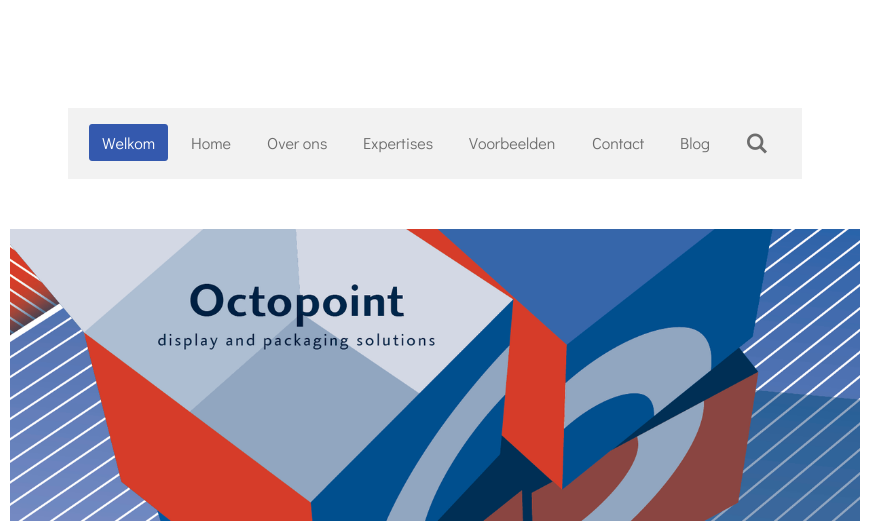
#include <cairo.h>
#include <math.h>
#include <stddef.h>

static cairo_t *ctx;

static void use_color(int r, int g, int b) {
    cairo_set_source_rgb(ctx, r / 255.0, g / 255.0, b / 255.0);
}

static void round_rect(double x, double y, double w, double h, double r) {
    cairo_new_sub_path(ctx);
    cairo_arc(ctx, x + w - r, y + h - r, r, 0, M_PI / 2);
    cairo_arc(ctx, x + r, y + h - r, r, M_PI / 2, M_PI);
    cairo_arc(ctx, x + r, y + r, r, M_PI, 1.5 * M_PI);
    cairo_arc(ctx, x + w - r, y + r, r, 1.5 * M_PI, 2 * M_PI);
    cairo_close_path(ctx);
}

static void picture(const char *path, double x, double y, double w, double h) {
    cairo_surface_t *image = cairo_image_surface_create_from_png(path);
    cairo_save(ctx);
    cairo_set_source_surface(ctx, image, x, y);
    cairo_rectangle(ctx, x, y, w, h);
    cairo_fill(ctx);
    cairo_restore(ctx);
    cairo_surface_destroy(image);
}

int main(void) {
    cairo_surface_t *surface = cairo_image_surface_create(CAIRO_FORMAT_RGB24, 870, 521);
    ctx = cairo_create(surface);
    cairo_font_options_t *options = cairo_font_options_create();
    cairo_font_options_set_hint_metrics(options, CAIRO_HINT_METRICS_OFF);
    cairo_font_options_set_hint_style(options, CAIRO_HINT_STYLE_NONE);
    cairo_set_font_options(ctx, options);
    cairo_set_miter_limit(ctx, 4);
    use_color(255, 255, 255);
    cairo_paint(ctx);
    use_color(242, 242, 242);
    cairo_rectangle(ctx, 68, 108, 734, 71);
    cairo_fill(ctx);
    use_color(52, 89, 174);
    round_rect(89, 124, 79, 37, 3);
    cairo_fill(ctx);
    cairo_select_font_face(ctx, "Didact Gothic", CAIRO_FONT_SLANT_NORMAL, CAIRO_FONT_WEIGHT_NORMAL);
    cairo_set_font_size(ctx, 16);
    use_color(255, 255, 255);
    cairo_move_to(ctx, 102, 149);
    cairo_show_text(ctx, "Welkom");
    use_color(109, 109, 109);
    cairo_move_to(ctx, 191, 149);
    cairo_show_text(ctx, "Home");
    cairo_move_to(ctx, 267, 149);
    cairo_show_text(ctx, "Over ons");
    cairo_move_to(ctx, 363, 149);
    cairo_show_text(ctx, "Expertises");
    cairo_move_to(ctx, 469, 149);
    cairo_show_text(ctx, "Voorbeelden");
    cairo_move_to(ctx, 592, 149);
    cairo_show_text(ctx, "Contact");
    cairo_move_to(ctx, 680, 149);
    cairo_show_text(ctx, "Blog");
    picture("img1.png", 747, 133, 20, 21);
    picture("img2.png", 10, 229, 850, 292);
    cairo_surface_write_to_png(surface, "result.png");
    cairo_font_options_destroy(options);
    cairo_destroy(ctx);
    cairo_surface_destroy(surface);
    return 0;
}
